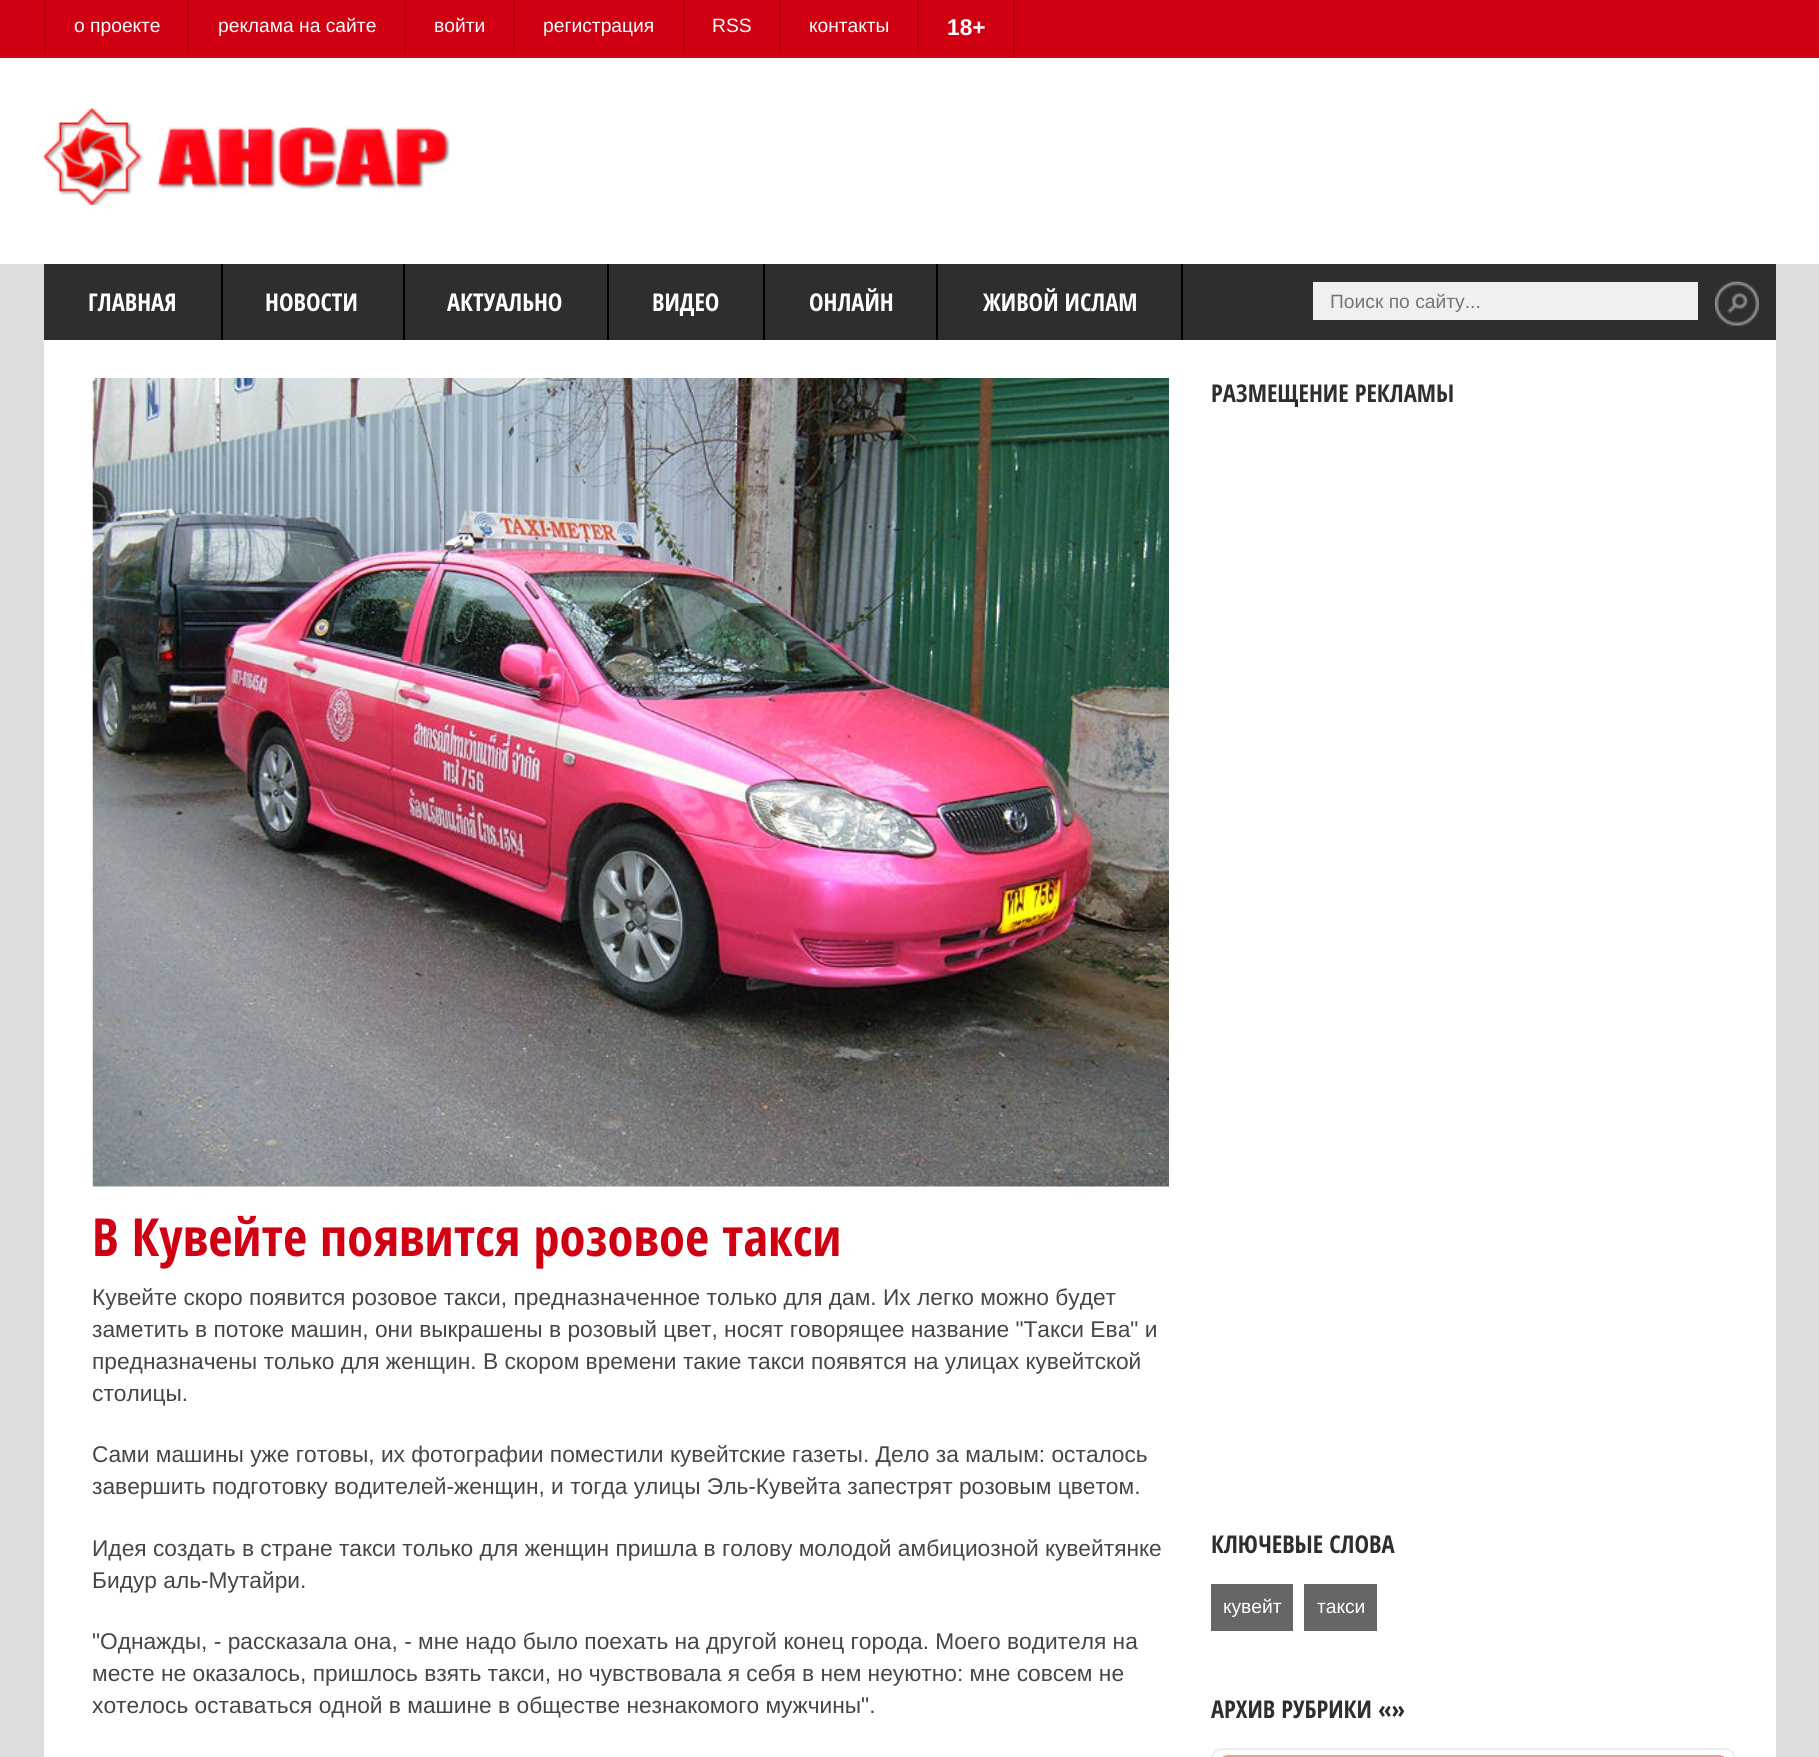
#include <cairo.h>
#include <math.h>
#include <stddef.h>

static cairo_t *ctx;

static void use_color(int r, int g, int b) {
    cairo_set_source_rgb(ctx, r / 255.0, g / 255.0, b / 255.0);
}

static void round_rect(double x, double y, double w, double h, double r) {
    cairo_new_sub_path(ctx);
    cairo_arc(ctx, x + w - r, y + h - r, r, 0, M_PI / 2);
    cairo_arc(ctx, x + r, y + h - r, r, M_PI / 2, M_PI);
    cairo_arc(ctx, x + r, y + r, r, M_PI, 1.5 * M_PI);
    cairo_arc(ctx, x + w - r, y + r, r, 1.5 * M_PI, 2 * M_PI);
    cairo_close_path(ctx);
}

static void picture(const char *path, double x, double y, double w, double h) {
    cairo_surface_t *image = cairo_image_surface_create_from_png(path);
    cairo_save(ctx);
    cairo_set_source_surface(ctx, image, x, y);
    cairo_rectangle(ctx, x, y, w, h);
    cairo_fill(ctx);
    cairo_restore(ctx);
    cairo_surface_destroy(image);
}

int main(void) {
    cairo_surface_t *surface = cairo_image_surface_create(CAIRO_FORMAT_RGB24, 1819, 1757);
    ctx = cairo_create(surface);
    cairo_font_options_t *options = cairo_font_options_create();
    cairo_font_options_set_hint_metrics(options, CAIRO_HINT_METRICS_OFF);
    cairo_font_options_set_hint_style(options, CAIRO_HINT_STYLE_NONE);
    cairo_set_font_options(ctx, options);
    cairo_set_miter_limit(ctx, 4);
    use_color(221, 221, 221);
    cairo_paint(ctx);
    use_color(255, 255, 255);
    cairo_rectangle(ctx, 0, 58, 1819, 206);
    cairo_fill(ctx);
    use_color(208, 0, 18);
    cairo_rectangle(ctx, 0, 0, 1819, 58);
    cairo_fill(ctx);
    use_color(187, 0, 16);
    cairo_rectangle(ctx, 187, 0, 2, 53);
    cairo_fill(ctx);
    cairo_rectangle(ctx, 44, 0, 2, 53);
    cairo_fill(ctx);
    cairo_select_font_face(ctx, "Liberation Sans", CAIRO_FONT_SLANT_NORMAL, CAIRO_FONT_WEIGHT_NORMAL);
    cairo_set_font_size(ctx, 19.25);
    use_color(255, 255, 255);
    cairo_move_to(ctx, 74, 32);
    cairo_show_text(ctx, "о проекте");
    use_color(187, 0, 16);
    cairo_rectangle(ctx, 404, 0, 2, 53);
    cairo_fill(ctx);
    use_color(255, 255, 255);
    cairo_move_to(ctx, 218, 32);
    cairo_show_text(ctx, "реклама на сайте");
    use_color(187, 0, 16);
    cairo_rectangle(ctx, 513, 0, 2, 53);
    cairo_fill(ctx);
    use_color(255, 255, 255);
    cairo_move_to(ctx, 434, 32);
    cairo_show_text(ctx, "войти");
    use_color(187, 0, 16);
    cairo_rectangle(ctx, 683, 0, 2, 53);
    cairo_fill(ctx);
    use_color(255, 255, 255);
    cairo_move_to(ctx, 543, 32);
    cairo_show_text(ctx, "регистрация");
    use_color(187, 0, 16);
    cairo_rectangle(ctx, 779, 0, 2, 53);
    cairo_fill(ctx);
    use_color(255, 255, 255);
    cairo_move_to(ctx, 712, 32);
    cairo_show_text(ctx, "RSS");
    use_color(187, 0, 16);
    cairo_rectangle(ctx, 917, 0, 2, 53);
    cairo_fill(ctx);
    use_color(255, 255, 255);
    cairo_move_to(ctx, 809, 32);
    cairo_show_text(ctx, "контакты");
    use_color(187, 0, 16);
    cairo_rectangle(ctx, 1013, 0, 2, 58);
    cairo_fill(ctx);
    cairo_select_font_face(ctx, "Liberation Sans", CAIRO_FONT_SLANT_NORMAL, CAIRO_FONT_WEIGHT_BOLD);
    cairo_set_font_size(ctx, 22.75);
    use_color(255, 255, 255);
    cairo_move_to(ctx, 947, 35);
    cairo_show_text(ctx, "18+");
    picture("img1.png", 43, 108, 407, 97);
    cairo_rectangle(ctx, 44, 340, 1732, 1417);
    cairo_fill(ctx);
    use_color(46, 46, 46);
    cairo_rectangle(ctx, 44, 264, 1732, 76);
    cairo_fill(ctx);
    use_color(0, 0, 0);
    cairo_rectangle(ctx, 221, 264, 2, 76);
    cairo_fill(ctx);
    cairo_select_font_face(ctx, "Open Sans Condensed", CAIRO_FONT_SLANT_NORMAL, CAIRO_FONT_WEIGHT_BOLD);
    cairo_set_font_size(ctx, 24.5);
    use_color(255, 255, 255);
    cairo_move_to(ctx, 88, 311);
    cairo_show_text(ctx, "ГЛАВНАЯ");
    use_color(0, 0, 0);
    cairo_rectangle(ctx, 403, 264, 2, 76);
    cairo_fill(ctx);
    use_color(255, 255, 255);
    cairo_move_to(ctx, 265, 311);
    cairo_show_text(ctx, "НОВОСТИ");
    use_color(0, 0, 0);
    cairo_rectangle(ctx, 607, 264, 2, 76);
    cairo_fill(ctx);
    use_color(255, 255, 255);
    cairo_move_to(ctx, 447, 311);
    cairo_show_text(ctx, "АКТУАЛЬНО");
    use_color(0, 0, 0);
    cairo_rectangle(ctx, 763, 264, 2, 76);
    cairo_fill(ctx);
    use_color(255, 255, 255);
    cairo_move_to(ctx, 652, 311);
    cairo_show_text(ctx, "ВИДЕО");
    use_color(0, 0, 0);
    cairo_rectangle(ctx, 936, 264, 2, 76);
    cairo_fill(ctx);
    use_color(255, 255, 255);
    cairo_move_to(ctx, 809, 311);
    cairo_show_text(ctx, "ОНЛАЙН");
    use_color(0, 0, 0);
    cairo_rectangle(ctx, 1181, 264, 2, 76);
    cairo_fill(ctx);
    use_color(255, 255, 255);
    cairo_move_to(ctx, 983, 311);
    cairo_show_text(ctx, "ЖИВОЙ ИСЛАМ");
    use_color(240, 240, 240);
    cairo_rectangle(ctx, 1313, 282, 385, 38);
    cairo_fill(ctx);
    cairo_select_font_face(ctx, "Liberation Sans", CAIRO_FONT_SLANT_NORMAL, CAIRO_FONT_WEIGHT_NORMAL);
    cairo_set_font_size(ctx, 19.25);
    use_color(117, 117, 117);
    cairo_move_to(ctx, 1330, 308);
    cairo_show_text(ctx, "Поиск по сайту...");
    picture("img2.png", 1715, 281, 44, 45);
    picture("img3.png", 92, 378, 1077, 809);
    cairo_select_font_face(ctx, "Open Sans Condensed", CAIRO_FONT_SLANT_NORMAL, CAIRO_FONT_WEIGHT_BOLD);
    cairo_set_font_size(ctx, 52.5);
    use_color(208, 0, 18);
    cairo_move_to(ctx, 92, 1256);
    cairo_show_text(ctx, "В Кувейте появится розовое такси");
    cairo_select_font_face(ctx, "Liberation Sans", CAIRO_FONT_SLANT_NORMAL, CAIRO_FONT_WEIGHT_NORMAL);
    cairo_set_font_size(ctx, 22.75);
    use_color(70, 70, 70);
    cairo_move_to(ctx, 92, 1305);
    cairo_show_text(ctx, "Кувейте скоро появится розовое такси, предназначенное только для дам. Их легко можно будет");
    cairo_move_to(ctx, 92, 1337);
    cairo_show_text(ctx, "заметить в потоке машин, они выкрашены в розовый цвет, носят говорящее название \"Такси Ева\" и");
    cairo_move_to(ctx, 92, 1369);
    cairo_show_text(ctx, "предназначены только для женщин. В скором времени такие такси появятся на улицах кувейтской");
    cairo_move_to(ctx, 92, 1401);
    cairo_show_text(ctx, "столицы.");
    cairo_move_to(ctx, 92, 1462);
    cairo_show_text(ctx, "Сами машины уже готовы, их фотографии поместили кувейтские газеты. Дело за малым: осталось");
    cairo_move_to(ctx, 92, 1494);
    cairo_show_text(ctx, "завершить подготовку водителей-женщин, и тогда улицы Эль-Кувейта запестрят розовым цветом.");
    cairo_move_to(ctx, 92, 1556);
    cairo_show_text(ctx, "Идея создать в стране такси только для женщин пришла в голову молодой амбициозной кувейтянке");
    cairo_move_to(ctx, 92, 1588);
    cairo_show_text(ctx, "Бидур аль-Мутайри.");
    cairo_move_to(ctx, 92, 1649);
    cairo_show_text(ctx, "\"Однажды, - рассказала она, - мне надо было поехать на другой конец города. Моего водителя на");
    cairo_move_to(ctx, 92, 1681);
    cairo_show_text(ctx, "месте не оказалось, пришлось взять такси, но чувствовала я себя в нем неуютно: мне совсем не");
    cairo_move_to(ctx, 92, 1713);
    cairo_show_text(ctx, "хотелось оставаться одной в машине в обществе незнакомого мужчины\".");
    cairo_select_font_face(ctx, "Open Sans Condensed", CAIRO_FONT_SLANT_NORMAL, CAIRO_FONT_WEIGHT_BOLD);
    cairo_set_font_size(ctx, 24.5);
    use_color(46, 46, 46);
    cairo_move_to(ctx, 1211, 402);
    cairo_show_text(ctx, "РАЗМЕЩЕНИЕ РЕКЛАМЫ");
    cairo_move_to(ctx, 1211, 1553);
    cairo_show_text(ctx, "КЛЮЧЕВЫЕ СЛОВА");
    use_color(102, 102, 102);
    cairo_rectangle(ctx, 1211, 1584, 82, 47);
    cairo_fill(ctx);
    cairo_select_font_face(ctx, "Liberation Sans", CAIRO_FONT_SLANT_NORMAL, CAIRO_FONT_WEIGHT_NORMAL);
    cairo_set_font_size(ctx, 19.25);
    use_color(255, 255, 255);
    cairo_move_to(ctx, 1223, 1613);
    cairo_show_text(ctx, "кувейт");
    use_color(102, 102, 102);
    cairo_rectangle(ctx, 1304, 1584, 73, 47);
    cairo_fill(ctx);
    use_color(255, 255, 255);
    cairo_move_to(ctx, 1317, 1613);
    cairo_show_text(ctx, "такси");
    cairo_select_font_face(ctx, "Open Sans Condensed", CAIRO_FONT_SLANT_NORMAL, CAIRO_FONT_WEIGHT_BOLD);
    cairo_set_font_size(ctx, 24.5);
    use_color(46, 46, 46);
    cairo_move_to(ctx, 1211, 1718);
    cairo_show_text(ctx, "АРХИВ РУБРИКИ «»");
    round_rect(1212, 1749, 523, 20, 10);
    use_color(238, 238, 238);
    cairo_stroke(ctx);
    picture("img4.png", 1223, 1755, 501, 2);
    round_rect(1219, 1756, 509, 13, 10);
    use_color(227, 161, 161);
    cairo_stroke(ctx);
    cairo_surface_write_to_png(surface, "result.png");
    cairo_font_options_destroy(options);
    cairo_destroy(ctx);
    cairo_surface_destroy(surface);
    return 0;
}
